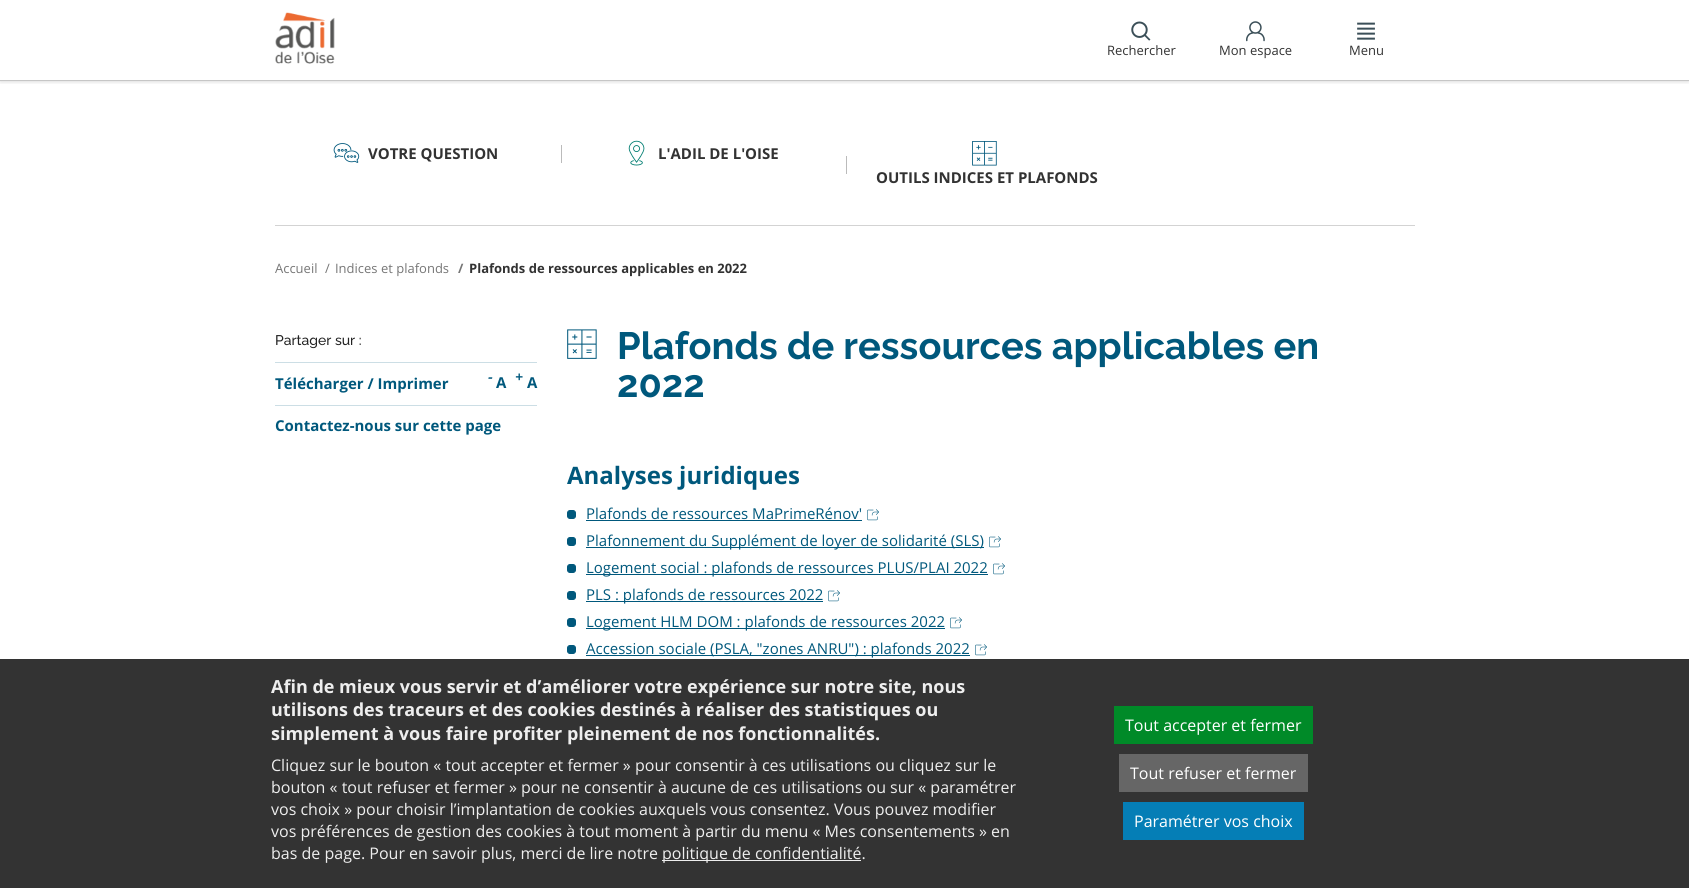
#include <cairo.h>
#include <math.h>
#include <stddef.h>

static cairo_t *ctx;

static void use_color(int r, int g, int b) {
    cairo_set_source_rgb(ctx, r / 255.0, g / 255.0, b / 255.0);
}

static void round_rect(double x, double y, double w, double h, double r) {
    cairo_new_sub_path(ctx);
    cairo_arc(ctx, x + w - r, y + h - r, r, 0, M_PI / 2);
    cairo_arc(ctx, x + r, y + h - r, r, M_PI / 2, M_PI);
    cairo_arc(ctx, x + r, y + r, r, M_PI, 1.5 * M_PI);
    cairo_arc(ctx, x + w - r, y + r, r, 1.5 * M_PI, 2 * M_PI);
    cairo_close_path(ctx);
}

static void shadow(double x, double y, double w, double h, double r, double blur, double alpha) {
    cairo_push_group_with_content(ctx, CAIRO_CONTENT_ALPHA);
    cairo_set_operator(ctx, CAIRO_OPERATOR_SOURCE);
    for (int i = 15; i >= -15 && fmin(w, h) + blur * i / 3 > 0; i -= 2) {
        double e = blur * i / 6;
        cairo_set_source_rgba(ctx, 0, 0, 0, alpha * erfc((i - 1) / 8.5) / 2);
        round_rect(x - e, y - e, w + 2 * e, h + 2 * e, fmax(0, fmin(r + e + blur * .6, fmin(w, h) / 2 + e)));
        cairo_fill(ctx);
    }
    cairo_pattern_t *soft = cairo_pop_group(ctx);
    cairo_mask(ctx, soft);
    cairo_pattern_destroy(soft);
}

static void picture(const char *path, double x, double y, double w, double h) {
    cairo_surface_t *image = cairo_image_surface_create_from_png(path);
    cairo_save(ctx);
    cairo_set_source_surface(ctx, image, x, y);
    cairo_rectangle(ctx, x, y, w, h);
    cairo_fill(ctx);
    cairo_restore(ctx);
    cairo_surface_destroy(image);
}

int main(void) {
    cairo_surface_t *surface = cairo_image_surface_create(CAIRO_FORMAT_RGB24, 1689, 888);
    ctx = cairo_create(surface);
    cairo_font_options_t *options = cairo_font_options_create();
    cairo_font_options_set_hint_metrics(options, CAIRO_HINT_METRICS_OFF);
    cairo_font_options_set_hint_style(options, CAIRO_HINT_STYLE_NONE);
    cairo_set_font_options(ctx, options);
    cairo_set_miter_limit(ctx, 4);
    use_color(255, 255, 255);
    cairo_paint(ctx);
    cairo_save(ctx);
    cairo_rectangle(ctx, 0, 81, 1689, 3);
    cairo_clip(ctx);
    use_color(0, 0, 0);
    shadow(0, 0, 1689, 81, 0, 2.5, 0.2);
    cairo_restore(ctx);
    use_color(198, 198, 198);
    cairo_rectangle(ctx, 0, 80, 1689, 1);
    cairo_fill(ctx);
    picture("img1.png", 275, 12, 60, 52);
    picture("img2.png", 1131, 21, 20, 20);
    cairo_select_font_face(ctx, "Open Sans", CAIRO_FONT_SLANT_NORMAL, CAIRO_FONT_WEIGHT_NORMAL);
    cairo_set_font_size(ctx, 13);
    use_color(50, 50, 50);
    cairo_move_to(ctx, 1107, 55);
    cairo_show_text(ctx, "Rechercher");
    picture("img3.png", 1246, 21, 19, 21);
    cairo_move_to(ctx, 1219, 55);
    cairo_show_text(ctx, "Mon espace");
    picture("img4.png", 1357, 22, 18, 18);
    cairo_move_to(ctx, 1349, 55);
    cairo_show_text(ctx, "Menu");
    use_color(211, 211, 211);
    cairo_rectangle(ctx, 275, 225, 1140, 1);
    cairo_fill(ctx);
    picture("img5.png", 333, 143, 27, 20);
    cairo_select_font_face(ctx, "Open Sans", CAIRO_FONT_SLANT_NORMAL, CAIRO_FONT_WEIGHT_BOLD);
    cairo_set_font_size(ctx, 15);
    use_color(50, 50, 50);
    cairo_move_to(ctx, 368, 159);
    cairo_show_text(ctx, "VOTRE QUESTION");
    use_color(187, 187, 187);
    cairo_rectangle(ctx, 561, 145, 1, 18);
    cairo_fill(ctx);
    picture("img6.png", 628, 140, 17, 26);
    use_color(50, 50, 50);
    cairo_move_to(ctx, 658, 159);
    cairo_show_text(ctx, "L'ADIL DE L'OISE");
    use_color(187, 187, 187);
    cairo_rectangle(ctx, 846, 156, 1, 18);
    cairo_fill(ctx);
    picture("img7.png", 972, 141, 25, 25);
    use_color(50, 50, 50);
    cairo_move_to(ctx, 876, 183);
    cairo_show_text(ctx, "OUTILS INDICES ET PLAFONDS");
    cairo_select_font_face(ctx, "Open Sans", CAIRO_FONT_SLANT_NORMAL, CAIRO_FONT_WEIGHT_NORMAL);
    cairo_set_font_size(ctx, 13);
    use_color(118, 118, 118);
    cairo_move_to(ctx, 275, 273);
    cairo_show_text(ctx, "Accueil");
    cairo_move_to(ctx, 325, 273);
    cairo_show_text(ctx, "/");
    cairo_move_to(ctx, 335, 273);
    cairo_show_text(ctx, "Indices et plafonds");
    cairo_select_font_face(ctx, "Open Sans", CAIRO_FONT_SLANT_NORMAL, CAIRO_FONT_WEIGHT_BOLD);
    cairo_move_to(ctx, 458, 273);
    cairo_show_text(ctx, "/");
    use_color(50, 50, 50);
    cairo_move_to(ctx, 469, 273);
    cairo_show_text(ctx, "Plafonds de ressources applicables en 2022");
    cairo_select_font_face(ctx, "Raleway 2 Thin", CAIRO_FONT_SLANT_NORMAL, CAIRO_FONT_WEIGHT_NORMAL);
    cairo_set_font_size(ctx, 14);
    use_color(34, 34, 34);
    cairo_move_to(ctx, 275, 345);
    cairo_show_text(ctx, "Partager sur :");
    use_color(204, 222, 229);
    cairo_rectangle(ctx, 275, 362, 262, 1);
    cairo_fill(ctx);
    cairo_select_font_face(ctx, "Open Sans", CAIRO_FONT_SLANT_NORMAL, CAIRO_FONT_WEIGHT_BOLD);
    cairo_set_font_size(ctx, 15);
    use_color(0, 88, 124);
    cairo_move_to(ctx, 275, 389);
    cairo_show_text(ctx, "Télécharger / Imprimer");
    cairo_select_font_face(ctx, "Open Sans", CAIRO_FONT_SLANT_ITALIC, CAIRO_FONT_WEIGHT_BOLD);
    cairo_set_font_size(ctx, 14);
    cairo_move_to(ctx, 488, 382);
    cairo_show_text(ctx, "-");
    cairo_select_font_face(ctx, "Open Sans", CAIRO_FONT_SLANT_NORMAL, CAIRO_FONT_WEIGHT_BOLD);
    cairo_set_font_size(ctx, 15);
    cairo_move_to(ctx, 496, 388);
    cairo_show_text(ctx, "A");
    cairo_select_font_face(ctx, "Open Sans", CAIRO_FONT_SLANT_ITALIC, CAIRO_FONT_WEIGHT_BOLD);
    cairo_set_font_size(ctx, 14);
    cairo_move_to(ctx, 515, 382);
    cairo_show_text(ctx, "+");
    cairo_select_font_face(ctx, "Open Sans", CAIRO_FONT_SLANT_NORMAL, CAIRO_FONT_WEIGHT_BOLD);
    cairo_set_font_size(ctx, 15);
    cairo_move_to(ctx, 527, 388);
    cairo_show_text(ctx, "A");
    use_color(204, 222, 229);
    cairo_rectangle(ctx, 275, 405, 262, 1);
    cairo_fill(ctx);
    use_color(0, 88, 124);
    cairo_move_to(ctx, 275, 431);
    cairo_show_text(ctx, "Contactez-nous sur cette page");
    picture("img8.png", 567, 329, 30, 30);
    cairo_select_font_face(ctx, "Raleway Thin", CAIRO_FONT_SLANT_NORMAL, CAIRO_FONT_WEIGHT_NORMAL);
    cairo_set_font_size(ctx, 38);
    cairo_move_to(ctx, 617, 359);
    cairo_show_text(ctx, "Plafonds de ressources applicables en");
    cairo_move_to(ctx, 617, 397);
    cairo_show_text(ctx, "2022");
    cairo_select_font_face(ctx, "Open Sans", CAIRO_FONT_SLANT_NORMAL, CAIRO_FONT_WEIGHT_BOLD);
    cairo_set_font_size(ctx, 24);
    cairo_move_to(ctx, 567, 484);
    cairo_show_text(ctx, "Analyses juridiques");
    round_rect(567.5, 510.5, 8, 8, 2.5);
    cairo_fill_preserve(ctx);
    cairo_set_line_width(ctx, 1);
    cairo_stroke(ctx);
    cairo_select_font_face(ctx, "Open Sans", CAIRO_FONT_SLANT_NORMAL, CAIRO_FONT_WEIGHT_NORMAL);
    cairo_set_font_size(ctx, 15);
    cairo_move_to(ctx, 586, 519);
    cairo_show_text(ctx, "Plafonds de ressources MaPrimeRénov'");
    cairo_rectangle(ctx, 586, 520, 276, 1);
    cairo_fill(ctx);
    picture("img9.png", 867, 509, 12, 12);
    round_rect(567.5, 537.5, 8, 8, 2.5);
    cairo_fill_preserve(ctx);
    cairo_stroke(ctx);
    cairo_rectangle(ctx, 586, 547, 398, 1);
    cairo_fill(ctx);
    cairo_move_to(ctx, 586, 546);
    cairo_show_text(ctx, "Plafonnement du Supplément de loyer de solidarité (SLS)");
    picture("img9.png", 989, 536, 12, 12);
    round_rect(567.5, 564.5, 8, 8, 2.5);
    cairo_fill_preserve(ctx);
    cairo_stroke(ctx);
    cairo_rectangle(ctx, 586, 574, 402, 1);
    cairo_fill(ctx);
    cairo_move_to(ctx, 586, 573);
    cairo_show_text(ctx, "Logement social : plafonds de ressources PLUS/PLAI 2022");
    picture("img9.png", 993, 563, 12, 12);
    round_rect(567.5, 591.5, 8, 8, 2.5);
    cairo_fill_preserve(ctx);
    cairo_stroke(ctx);
    cairo_rectangle(ctx, 586, 601, 237, 1);
    cairo_fill(ctx);
    cairo_move_to(ctx, 586, 600);
    cairo_show_text(ctx, "PLS : plafonds de ressources 2022");
    picture("img9.png", 828, 590, 12, 12);
    round_rect(567.5, 618.5, 8, 8, 2.5);
    cairo_fill_preserve(ctx);
    cairo_stroke(ctx);
    cairo_rectangle(ctx, 586, 628, 359, 1);
    cairo_fill(ctx);
    cairo_move_to(ctx, 586, 627);
    cairo_show_text(ctx, "Logement HLM DOM : plafonds de ressources 2022");
    picture("img9.png", 950, 617, 12, 12);
    round_rect(567.5, 645.5, 8, 8, 2.5);
    cairo_fill_preserve(ctx);
    cairo_stroke(ctx);
    cairo_rectangle(ctx, 586, 655, 384, 1);
    cairo_fill(ctx);
    cairo_move_to(ctx, 586, 654);
    cairo_show_text(ctx, "Accession sociale (PSLA, \"zones ANRU\") : plafonds 2022");
    picture("img9.png", 975, 644, 12, 12);
    use_color(51, 51, 51);
    cairo_rectangle(ctx, 0, 659, 1689, 229);
    cairo_fill(ctx);
    cairo_select_font_face(ctx, "Open Sans", CAIRO_FONT_SLANT_NORMAL, CAIRO_FONT_WEIGHT_BOLD);
    cairo_set_font_size(ctx, 18);
    use_color(238, 238, 238);
    cairo_move_to(ctx, 271, 693);
    cairo_show_text(ctx, "Afin de mieux vous servir et d’améliorer votre expérience sur notre site, nous");
    cairo_move_to(ctx, 271, 716);
    cairo_show_text(ctx, "utilisons des traceurs et des cookies destinés à réaliser des statistiques ou");
    cairo_move_to(ctx, 271, 740);
    cairo_show_text(ctx, "simplement à vous faire profiter pleinement de nos fonctionnalités.");
    cairo_select_font_face(ctx, "Open Sans", CAIRO_FONT_SLANT_NORMAL, CAIRO_FONT_WEIGHT_NORMAL);
    cairo_set_font_size(ctx, 16);
    cairo_move_to(ctx, 271, 771);
    cairo_show_text(ctx, "Cliquez sur le bouton « tout accepter et fermer » pour consentir à ces utilisations ou cliquez sur le");
    cairo_move_to(ctx, 271, 793);
    cairo_show_text(ctx, "bouton « tout refuser et fermer » pour ne consentir à aucune de ces utilisations ou sur « paramétrer");
    cairo_move_to(ctx, 271, 815);
    cairo_show_text(ctx, "vos choix » pour choisir l’implantation de cookies auxquels vous consentez. Vous pouvez modifier");
    cairo_move_to(ctx, 271, 837);
    cairo_show_text(ctx, "vos préférences de gestion des cookies à tout moment à partir du menu « Mes consentements » en");
    cairo_move_to(ctx, 271, 859);
    cairo_show_text(ctx, "bas de page. Pour en savoir plus, merci de lire notre");
    cairo_rectangle(ctx, 662, 860, 199, 1);
    cairo_fill(ctx);
    cairo_move_to(ctx, 662, 859);
    cairo_show_text(ctx, "politique de confidentialité.");
    use_color(0, 138, 40);
    cairo_rectangle(ctx, 1114, 706, 199, 38);
    cairo_fill(ctx);
    use_color(255, 255, 255);
    cairo_move_to(ctx, 1125, 731);
    cairo_show_text(ctx, "Tout accepter et fermer");
    use_color(102, 102, 102);
    cairo_rectangle(ctx, 1119, 754, 189, 38);
    cairo_fill(ctx);
    use_color(255, 255, 255);
    cairo_move_to(ctx, 1130, 779);
    cairo_show_text(ctx, "Tout refuser et fermer");
    use_color(5, 126, 182);
    cairo_rectangle(ctx, 1123, 802, 181, 38);
    cairo_fill(ctx);
    use_color(255, 255, 255);
    cairo_move_to(ctx, 1134, 827);
    cairo_show_text(ctx, "Paramétrer vos choix");
    cairo_surface_write_to_png(surface, "result.png");
    cairo_font_options_destroy(options);
    cairo_destroy(ctx);
    cairo_surface_destroy(surface);
    return 0;
}
